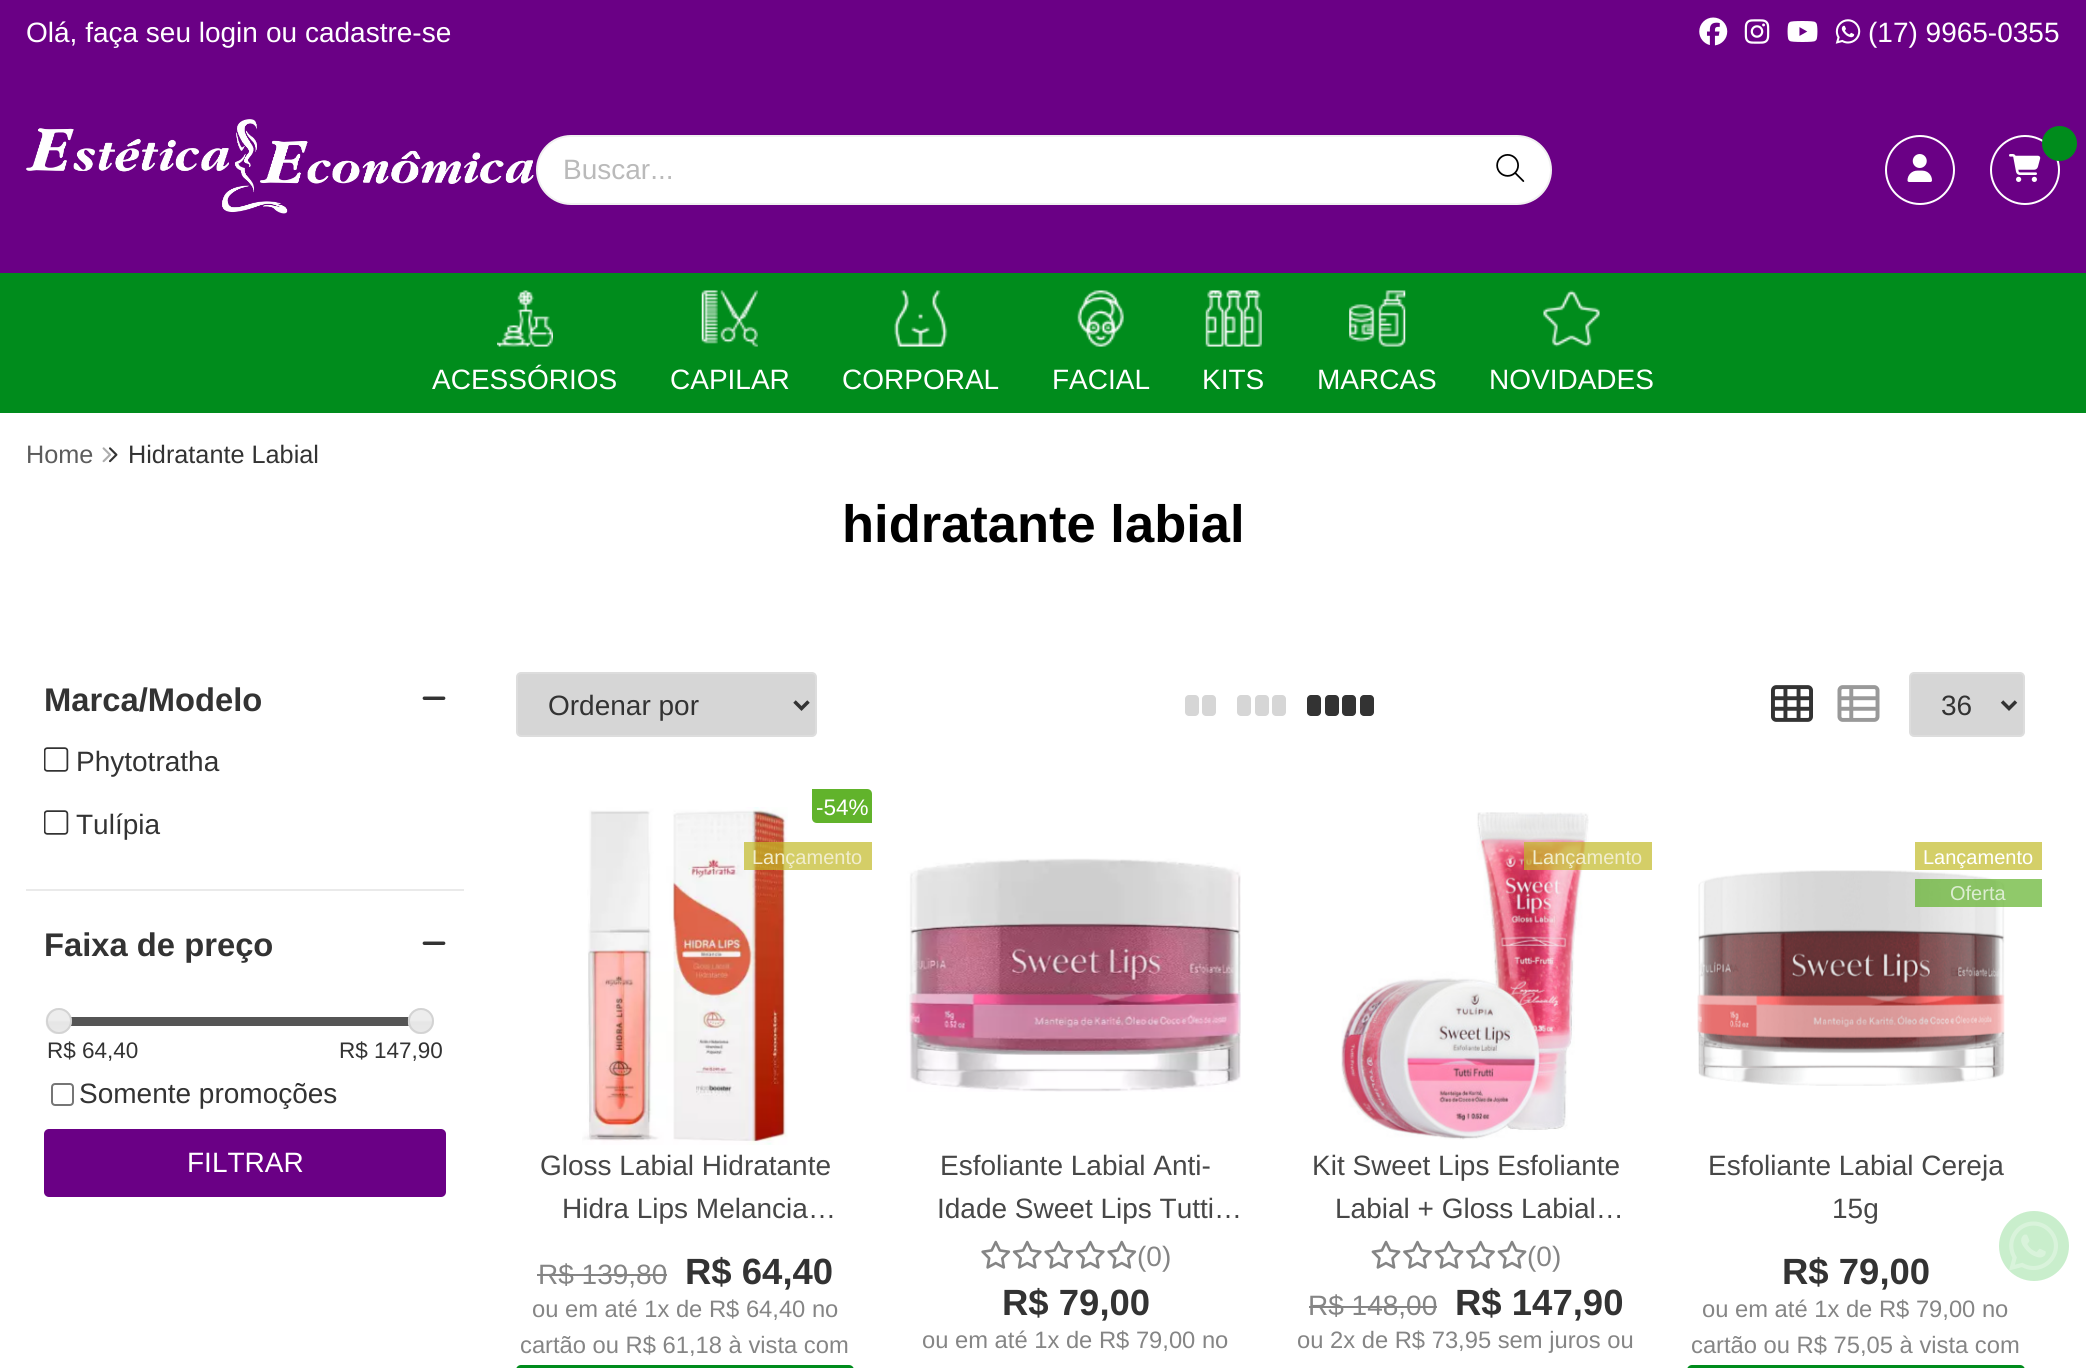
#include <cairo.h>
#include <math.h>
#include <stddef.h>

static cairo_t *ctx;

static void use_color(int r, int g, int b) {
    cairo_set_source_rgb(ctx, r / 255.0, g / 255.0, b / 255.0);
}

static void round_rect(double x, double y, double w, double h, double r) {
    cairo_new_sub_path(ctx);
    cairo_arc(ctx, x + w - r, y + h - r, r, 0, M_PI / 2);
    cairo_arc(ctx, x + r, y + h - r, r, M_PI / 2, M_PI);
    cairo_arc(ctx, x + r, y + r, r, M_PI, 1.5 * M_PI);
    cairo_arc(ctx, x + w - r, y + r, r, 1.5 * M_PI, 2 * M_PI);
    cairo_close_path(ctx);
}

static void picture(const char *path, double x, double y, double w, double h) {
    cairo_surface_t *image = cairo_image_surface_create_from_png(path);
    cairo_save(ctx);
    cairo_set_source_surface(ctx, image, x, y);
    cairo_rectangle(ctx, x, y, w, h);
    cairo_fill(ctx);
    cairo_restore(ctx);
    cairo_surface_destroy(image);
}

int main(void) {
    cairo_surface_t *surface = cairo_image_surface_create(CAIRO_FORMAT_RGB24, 2086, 1368);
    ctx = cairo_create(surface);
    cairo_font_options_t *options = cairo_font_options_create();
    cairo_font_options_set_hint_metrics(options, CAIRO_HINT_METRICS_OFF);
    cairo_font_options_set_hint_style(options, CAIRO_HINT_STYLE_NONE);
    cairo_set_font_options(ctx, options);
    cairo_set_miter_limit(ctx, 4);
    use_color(255, 255, 255);
    cairo_paint(ctx);
    use_color(106, 0, 133);
    cairo_rectangle(ctx, 0, 0, 2086, 273);
    cairo_fill(ctx);
    cairo_select_font_face(ctx, "Liberation Sans", CAIRO_FONT_SLANT_NORMAL, CAIRO_FONT_WEIGHT_NORMAL);
    cairo_set_font_size(ctx, 28);
    use_color(255, 255, 255);
    cairo_move_to(ctx, 26, 42);
    cairo_show_text(ctx, "Olá, faça seu login");
    cairo_move_to(ctx, 266, 42);
    cairo_show_text(ctx, "ou cadastre-se");
    picture("img1.png", 1699, 17, 29, 29);
    picture("img2.png", 1744, 19, 26, 25);
    picture("img3.png", 1787, 21, 31, 21);
    picture("img4.png", 1835, 19, 26, 25);
    cairo_move_to(ctx, 1868, 42);
    cairo_show_text(ctx, "(17) 9965-0355");
    picture("img5.png", 26, 119, 508, 95);
    round_rect(537, 136, 1014, 68, 34);
    cairo_fill_preserve(ctx);
    use_color(241, 241, 241);
    cairo_stroke(ctx);
    use_color(186, 186, 186);
    cairo_move_to(ctx, 563, 179);
    cairo_show_text(ctx, "Buscar...");
    picture("img6.png", 1496, 154, 29, 28);
    cairo_arc(ctx, 1920, 170, 34, 0, 2 * M_PI);
    use_color(255, 255, 255);
    cairo_stroke(ctx);
    picture("img7.png", 1907, 154, 25, 28);
    cairo_arc(ctx, 2025, 170, 34, 0, 2 * M_PI);
    cairo_stroke(ctx);
    use_color(0, 140, 28);
    cairo_arc(ctx, 2059.5, 143.5, 17.5, 0, 2 * M_PI);
    cairo_fill(ctx);
    picture("img8.png", 2009, 154, 32, 28);
    cairo_rectangle(ctx, 0, 273, 2086, 140);
    cairo_fill(ctx);
    picture("img9.png", 497, 290, 56, 57);
    use_color(255, 255, 255);
    cairo_move_to(ctx, 432, 389);
    cairo_show_text(ctx, "ACESSÓRIOS");
    picture("img10.png", 701, 290, 57, 57);
    cairo_move_to(ctx, 670, 389);
    cairo_show_text(ctx, "CAPILAR");
    picture("img11.png", 894, 290, 54, 57);
    cairo_move_to(ctx, 842, 389);
    cairo_show_text(ctx, "CORPORAL");
    picture("img12.png", 1077, 290, 47, 57);
    cairo_move_to(ctx, 1052, 389);
    cairo_show_text(ctx, "FACIAL");
    picture("img13.png", 1205, 290, 57, 57);
    cairo_move_to(ctx, 1202, 389);
    cairo_show_text(ctx, "KITS");
    picture("img14.png", 1349, 290, 57, 57);
    cairo_move_to(ctx, 1317, 389);
    cairo_show_text(ctx, "MARCAS");
    picture("img15.png", 1543, 290, 57, 57);
    cairo_move_to(ctx, 1489, 389);
    cairo_show_text(ctx, "NOVIDADES");
    cairo_set_font_size(ctx, 25.25);
    use_color(92, 92, 92);
    cairo_move_to(ctx, 26, 463);
    cairo_show_text(ctx, "Home");
    picture("img16.png", 102, 447, 16, 16);
    use_color(51, 51, 51);
    cairo_move_to(ctx, 128, 463);
    cairo_show_text(ctx, "Hidratante Labial");
    cairo_select_font_face(ctx, "Liberation Sans", CAIRO_FONT_SLANT_NORMAL, CAIRO_FONT_WEIGHT_BOLD);
    cairo_set_font_size(ctx, 52.5);
    use_color(0, 0, 0);
    cairo_move_to(ctx, 842, 542);
    cairo_show_text(ctx, "hidratante labial");
    use_color(234, 234, 234);
    cairo_rectangle(ctx, 26, 889, 438, 2);
    cairo_fill(ctx);
    cairo_set_font_size(ctx, 32.75);
    use_color(51, 51, 51);
    cairo_move_to(ctx, 44, 711);
    cairo_show_text(ctx, "Marca/Modelo");
    picture("img17.png", 422, 696, 24, 4);
    picture("img18.png", 44, 747, 25, 25);
    cairo_select_font_face(ctx, "Liberation Sans", CAIRO_FONT_SLANT_NORMAL, CAIRO_FONT_WEIGHT_NORMAL);
    cairo_set_font_size(ctx, 28);
    cairo_move_to(ctx, 76, 771);
    cairo_show_text(ctx, "Phytotratha");
    picture("img18.png", 44, 810, 25, 25);
    cairo_move_to(ctx, 76, 834);
    cairo_show_text(ctx, "Tulípia");
    cairo_select_font_face(ctx, "Liberation Sans", CAIRO_FONT_SLANT_NORMAL, CAIRO_FONT_WEIGHT_BOLD);
    cairo_set_font_size(ctx, 32.75);
    cairo_move_to(ctx, 44, 956);
    cairo_show_text(ctx, "Faixa de preço");
    picture("img17.png", 422, 941, 24, 4);
    use_color(85, 85, 85);
    cairo_rectangle(ctx, 71, 1017, 338, 9);
    cairo_fill(ctx);
    picture("img19.png", 45, 1008, 27, 26);
    cairo_arc(ctx, 59, 1021, 12, 0, 2 * M_PI);
    use_color(211, 211, 211);
    cairo_stroke(ctx);
    picture("img20.png", 407, 1008, 27, 26);
    cairo_arc(ctx, 421, 1021, 12, 0, 2 * M_PI);
    cairo_stroke(ctx);
    cairo_select_font_face(ctx, "Liberation Sans", CAIRO_FONT_SLANT_NORMAL, CAIRO_FONT_WEIGHT_NORMAL);
    cairo_set_font_size(ctx, 22.5);
    use_color(51, 51, 51);
    cairo_move_to(ctx, 47, 1058);
    cairo_show_text(ctx, "R$ 64,40");
    cairo_move_to(ctx, 339, 1058);
    cairo_show_text(ctx, "R$ 147,90");
    round_rect(52, 1084, 21, 21, 3);
    use_color(118, 118, 118);
    cairo_stroke(ctx);
    cairo_set_font_size(ctx, 28);
    use_color(51, 51, 51);
    cairo_move_to(ctx, 79, 1103);
    cairo_show_text(ctx, "Somente promoções");
    use_color(106, 0, 133);
    round_rect(44, 1129, 402, 68, 5);
    cairo_fill(ctx);
    use_color(255, 255, 255);
    cairo_move_to(ctx, 187, 1172);
    cairo_show_text(ctx, "FILTRAR");
    use_color(214, 214, 214);
    round_rect(517, 673, 299, 63, 4);
    cairo_fill_preserve(ctx);
    use_color(221, 221, 221);
    cairo_stroke(ctx);
    cairo_new_path(ctx);
    cairo_move_to(ctx, 794.5, 701.5);
    cairo_line_to(ctx, 801.5, 708.5);
    cairo_line_to(ctx, 808.5, 701.5);
    use_color(51, 51, 51);
    cairo_set_line_width(ctx, 3.5);
    cairo_stroke(ctx);
    cairo_move_to(ctx, 548, 715);
    cairo_show_text(ctx, "Ordenar por");
    use_color(214, 214, 214);
    round_rect(1185, 695, 14, 21, 4);
    cairo_fill(ctx);
    round_rect(1202, 695, 14, 21, 4);
    cairo_fill(ctx);
    round_rect(1237, 695, 14, 21, 4);
    cairo_fill(ctx);
    round_rect(1255, 695, 14, 21, 4);
    cairo_fill(ctx);
    round_rect(1272, 695, 14, 21, 4);
    cairo_fill(ctx);
    use_color(51, 51, 51);
    round_rect(1307, 695, 14, 21, 4);
    cairo_fill(ctx);
    round_rect(1325, 695, 14, 21, 4);
    cairo_fill(ctx);
    round_rect(1342, 695, 14, 21, 4);
    cairo_fill(ctx);
    round_rect(1360, 695, 14, 21, 4);
    cairo_fill(ctx);
    picture("img21.png", 1771, 685, 42, 37);
    picture("img22.png", 1837, 685, 43, 37);
    use_color(214, 214, 214);
    round_rect(1910, 673, 114, 63, 4);
    cairo_fill_preserve(ctx);
    use_color(221, 221, 221);
    cairo_set_line_width(ctx, 2);
    cairo_stroke(ctx);
    cairo_new_path(ctx);
    cairo_move_to(ctx, 2002, 701.5);
    cairo_line_to(ctx, 2009, 708.5);
    cairo_line_to(ctx, 2016, 701.5);
    use_color(51, 51, 51);
    cairo_set_line_width(ctx, 3.5);
    cairo_stroke(ctx);
    cairo_move_to(ctx, 1941, 715);
    cairo_show_text(ctx, "36");
    picture("img23.png", 582, 807, 206, 338);
    use_color(97, 179, 43);
    cairo_new_path(ctx);
    cairo_move_to(ctx, 812, 789);
    cairo_line_to(ctx, 867, 789);
    cairo_curve_to(ctx, 870, 789, 872, 791, 872, 794);
    cairo_line_to(ctx, 872, 823);
    cairo_line_to(ctx, 817, 823);
    cairo_curve_to(ctx, 814, 823, 812, 821, 812, 818);
    cairo_close_path(ctx);
    cairo_fill(ctx);
    cairo_set_font_size(ctx, 22.5);
    use_color(255, 255, 255);
    cairo_move_to(ctx, 816, 815);
    cairo_show_text(ctx, "-54%");
    cairo_set_source_rgba(ctx, 0.761, 0.729, 0.153, 0.7);
    cairo_rectangle(ctx, 744, 842, 128, 28);
    cairo_fill(ctx);
    cairo_set_font_size(ctx, 20);
    use_color(241, 237, 205);
    cairo_move_to(ctx, 752, 864);
    cairo_show_text(ctx, "Lançamento");
    cairo_set_font_size(ctx, 28);
    use_color(71, 71, 71);
    cairo_move_to(ctx, 540, 1175);
    cairo_show_text(ctx, "Gloss Labial Hidratante");
    cairo_move_to(ctx, 562, 1218);
    cairo_show_text(ctx, "Hidra Lips Melancia…");
    use_color(133, 133, 133);
    cairo_move_to(ctx, 538, 1284);
    cairo_show_text(ctx, "R$ 139,80");
    cairo_rectangle(ctx, 537, 1274, 130, 2);
    cairo_fill(ctx);
    cairo_select_font_face(ctx, "Liberation Sans", CAIRO_FONT_SLANT_NORMAL, CAIRO_FONT_WEIGHT_BOLD);
    cairo_set_font_size(ctx, 36.5);
    use_color(51, 51, 51);
    cairo_move_to(ctx, 685, 1284);
    cairo_show_text(ctx, "R$ 64,40");
    cairo_select_font_face(ctx, "Liberation Sans", CAIRO_FONT_SLANT_NORMAL, CAIRO_FONT_WEIGHT_NORMAL);
    cairo_set_font_size(ctx, 23.75);
    use_color(133, 133, 133);
    cairo_move_to(ctx, 532, 1317);
    cairo_show_text(ctx, "ou em até 1x de R$ 64,40 no");
    cairo_move_to(ctx, 520, 1353);
    cairo_show_text(ctx, "cartão ou R$ 61,18 à vista com");
    use_color(0, 140, 28);
    round_rect(516, 1365, 338, 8, 5);
    cairo_fill(ctx);
    picture("img24.png", 906, 858, 335, 234);
    cairo_set_font_size(ctx, 28);
    use_color(71, 71, 71);
    cairo_move_to(ctx, 940, 1175);
    cairo_show_text(ctx, "Esfoliante Labial Anti-");
    cairo_move_to(ctx, 937, 1218);
    cairo_show_text(ctx, "Idade Sweet Lips Tutti…");
    picture("img25.png", 981, 1240, 30, 29);
    picture("img26.png", 1012, 1240, 30, 29);
    picture("img25.png", 1044, 1240, 30, 29);
    picture("img26.png", 1075, 1240, 30, 29);
    picture("img25.png", 1107, 1240, 30, 29);
    use_color(133, 133, 133);
    cairo_move_to(ctx, 1137, 1266);
    cairo_show_text(ctx, "(0)");
    cairo_select_font_face(ctx, "Liberation Sans", CAIRO_FONT_SLANT_NORMAL, CAIRO_FONT_WEIGHT_BOLD);
    cairo_set_font_size(ctx, 36.5);
    use_color(51, 51, 51);
    cairo_move_to(ctx, 1002, 1315);
    cairo_show_text(ctx, "R$ 79,00");
    cairo_select_font_face(ctx, "Liberation Sans", CAIRO_FONT_SLANT_NORMAL, CAIRO_FONT_WEIGHT_NORMAL);
    cairo_set_font_size(ctx, 23.75);
    use_color(133, 133, 133);
    cairo_move_to(ctx, 922, 1348);
    cairo_show_text(ctx, "ou em até 1x de R$ 79,00 no");
    picture("img27.png", 1341, 812, 248, 328);
    cairo_set_source_rgba(ctx, 0.761, 0.729, 0.153, 0.7);
    cairo_rectangle(ctx, 1524, 842, 128, 28);
    cairo_fill(ctx);
    cairo_set_font_size(ctx, 20);
    use_color(241, 237, 205);
    cairo_move_to(ctx, 1532, 864);
    cairo_show_text(ctx, "Lançamento");
    cairo_set_font_size(ctx, 28);
    use_color(71, 71, 71);
    cairo_move_to(ctx, 1312, 1175);
    cairo_show_text(ctx, "Kit Sweet Lips Esfoliante");
    cairo_move_to(ctx, 1335, 1218);
    cairo_show_text(ctx, "Labial + Gloss Labial…");
    picture("img28.png", 1371, 1240, 30, 29);
    picture("img29.png", 1403, 1240, 29, 29);
    picture("img28.png", 1434, 1240, 30, 29);
    picture("img29.png", 1466, 1240, 29, 29);
    picture("img28.png", 1497, 1240, 30, 29);
    use_color(133, 133, 133);
    cairo_move_to(ctx, 1527, 1266);
    cairo_show_text(ctx, "(0)");
    cairo_move_to(ctx, 1308, 1315);
    cairo_show_text(ctx, "R$ 148,00");
    cairo_rectangle(ctx, 1309, 1306, 128, 2);
    cairo_fill(ctx);
    cairo_select_font_face(ctx, "Liberation Sans", CAIRO_FONT_SLANT_NORMAL, CAIRO_FONT_WEIGHT_BOLD);
    cairo_set_font_size(ctx, 36.5);
    use_color(51, 51, 51);
    cairo_move_to(ctx, 1455, 1315);
    cairo_show_text(ctx, "R$ 147,90");
    cairo_select_font_face(ctx, "Liberation Sans", CAIRO_FONT_SLANT_NORMAL, CAIRO_FONT_WEIGHT_NORMAL);
    cairo_set_font_size(ctx, 23.75);
    use_color(133, 133, 133);
    cairo_move_to(ctx, 1297, 1348);
    cairo_show_text(ctx, "ou 2x de R$ 73,95 sem juros ou");
    use_color(212, 207, 104);
    cairo_rectangle(ctx, 1915, 842, 127, 28);
    cairo_fill(ctx);
    cairo_set_font_size(ctx, 20);
    use_color(255, 255, 255);
    cairo_move_to(ctx, 1923, 864);
    cairo_show_text(ctx, "Lançamento");
    picture("img30.png", 1697, 870, 308, 216);
    cairo_set_source_rgba(ctx, 0.38, 0.702, 0.169, 0.7);
    cairo_rectangle(ctx, 1915, 879, 127, 28);
    cairo_fill(ctx);
    use_color(220, 237, 209);
    cairo_move_to(ctx, 1950, 900);
    cairo_show_text(ctx, "Oferta");
    cairo_set_font_size(ctx, 28);
    use_color(71, 71, 71);
    cairo_move_to(ctx, 1708, 1175);
    cairo_show_text(ctx, "Esfoliante Labial Cereja");
    cairo_move_to(ctx, 1832, 1218);
    cairo_show_text(ctx, "15g");
    cairo_select_font_face(ctx, "Liberation Sans", CAIRO_FONT_SLANT_NORMAL, CAIRO_FONT_WEIGHT_BOLD);
    cairo_set_font_size(ctx, 36.5);
    use_color(51, 51, 51);
    cairo_move_to(ctx, 1782, 1284);
    cairo_show_text(ctx, "R$ 79,00");
    cairo_select_font_face(ctx, "Liberation Sans", CAIRO_FONT_SLANT_NORMAL, CAIRO_FONT_WEIGHT_NORMAL);
    cairo_set_font_size(ctx, 23.75);
    use_color(133, 133, 133);
    cairo_move_to(ctx, 1702, 1317);
    cairo_show_text(ctx, "ou em até 1x de R$ 79,00 no");
    cairo_move_to(ctx, 1691, 1353);
    cairo_show_text(ctx, "cartão ou R$ 75,05 à vista com");
    use_color(0, 140, 28);
    round_rect(1687, 1365, 338, 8, 5);
    cairo_fill(ctx);
    use_color(201, 238, 204);
    cairo_arc(ctx, 2034, 1246, 35, 0, 2 * M_PI);
    cairo_fill(ctx);
    picture("img31.png", 2009, 1221, 49, 50);
    cairo_surface_write_to_png(surface, "result.png");
    cairo_font_options_destroy(options);
    cairo_destroy(ctx);
    cairo_surface_destroy(surface);
    return 0;
}
